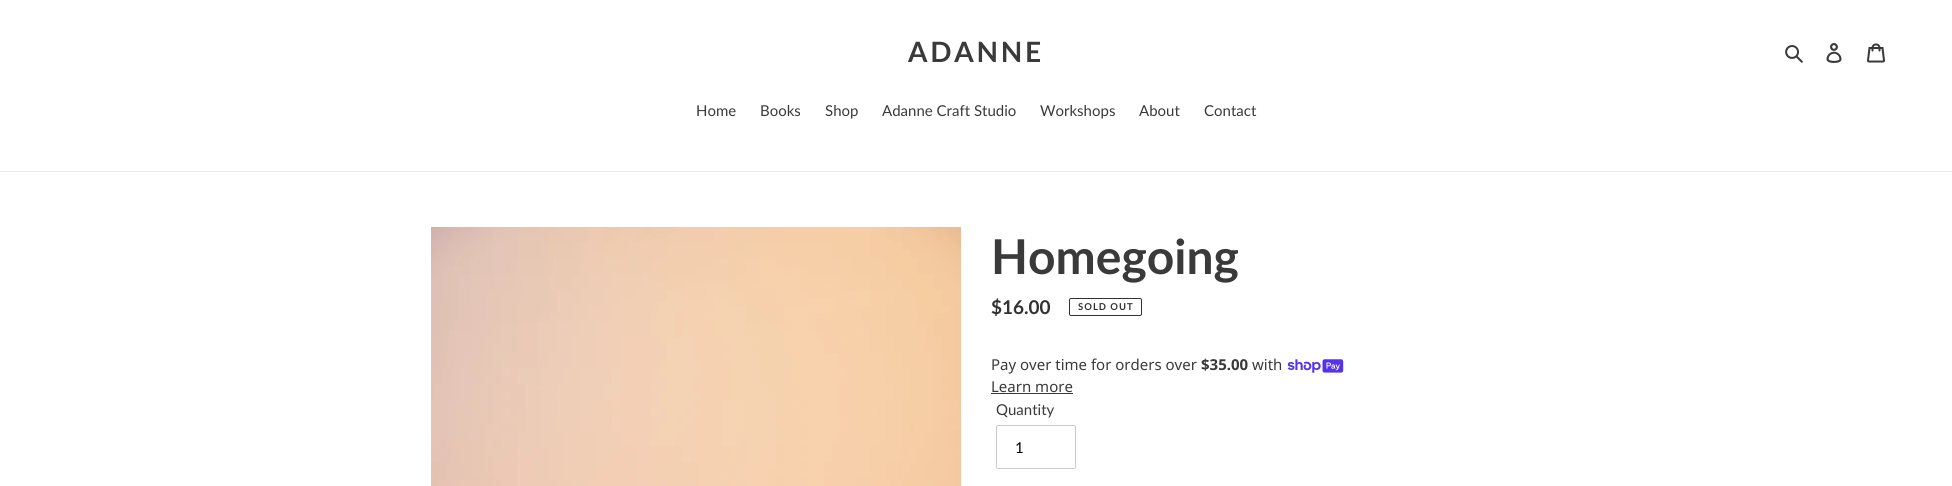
#include <cairo.h>
#include <math.h>
#include <stddef.h>

static cairo_t *ctx;

static void use_color(int r, int g, int b) {
    cairo_set_source_rgb(ctx, r / 255.0, g / 255.0, b / 255.0);
}

static void spaced_text(double x, double y, const char *s, double letter, double word) {
    cairo_move_to(ctx, x, y);
    while (*s) {
        char ch[5] = {0};
        int n = 0;
        do ch[n++] = *s++; while ((*s & 0xC0) == 0x80);
        cairo_show_text(ctx, ch);
        cairo_rel_move_to(ctx, letter + word * (*ch == ' '), 0);
    }
}

static void round_rect(double x, double y, double w, double h, double r) {
    cairo_new_sub_path(ctx);
    cairo_arc(ctx, x + w - r, y + h - r, r, 0, M_PI / 2);
    cairo_arc(ctx, x + r, y + h - r, r, M_PI / 2, M_PI);
    cairo_arc(ctx, x + r, y + r, r, M_PI, 1.5 * M_PI);
    cairo_arc(ctx, x + w - r, y + r, r, 1.5 * M_PI, 2 * M_PI);
    cairo_close_path(ctx);
}

static void picture(const char *path, double x, double y, double w, double h) {
    cairo_surface_t *image = cairo_image_surface_create_from_png(path);
    cairo_save(ctx);
    cairo_set_source_surface(ctx, image, x, y);
    cairo_rectangle(ctx, x, y, w, h);
    cairo_fill(ctx);
    cairo_restore(ctx);
    cairo_surface_destroy(image);
}

int main(void) {
    cairo_surface_t *surface = cairo_image_surface_create(CAIRO_FORMAT_RGB24, 1952, 486);
    ctx = cairo_create(surface);
    cairo_font_options_t *options = cairo_font_options_create();
    cairo_font_options_set_hint_metrics(options, CAIRO_HINT_METRICS_OFF);
    cairo_font_options_set_hint_style(options, CAIRO_HINT_STYLE_NONE);
    cairo_set_font_options(ctx, options);
    cairo_set_miter_limit(ctx, 4);
    use_color(255, 255, 255);
    cairo_paint(ctx);
    cairo_select_font_face(ctx, "Lato", CAIRO_FONT_SLANT_NORMAL, CAIRO_FONT_WEIGHT_BOLD);
    cairo_set_font_size(ctx, 28);
    use_color(58, 58, 58);
    spaced_text(908, 62, "ADANNE", 2.75, 0);
    picture("img1.png", 1785, 45, 18, 18);
    picture("img2.png", 1826, 43, 16, 20);
    picture("img3.png", 1867, 43, 18, 20);
    use_color(235, 235, 235);
    cairo_rectangle(ctx, 0, 171, 1952, 1);
    cairo_fill(ctx);
    cairo_select_font_face(ctx, "Lato", CAIRO_FONT_SLANT_NORMAL, CAIRO_FONT_WEIGHT_NORMAL);
    cairo_set_font_size(ctx, 15);
    use_color(58, 58, 58);
    cairo_move_to(ctx, 696, 116);
    cairo_show_text(ctx, "Home");
    cairo_move_to(ctx, 760, 116);
    cairo_show_text(ctx, "Books");
    cairo_move_to(ctx, 825, 116);
    cairo_show_text(ctx, "Shop");
    cairo_move_to(ctx, 882, 116);
    cairo_show_text(ctx, "Adanne Craft Studio");
    cairo_move_to(ctx, 1040, 116);
    cairo_show_text(ctx, "Workshops");
    cairo_move_to(ctx, 1139, 116);
    cairo_show_text(ctx, "About");
    cairo_move_to(ctx, 1204, 116);
    cairo_show_text(ctx, "Contact");
    picture("img4.png", 431, 227, 530, 259);
    cairo_select_font_face(ctx, "Lato", CAIRO_FONT_SLANT_NORMAL, CAIRO_FONT_WEIGHT_BOLD);
    cairo_set_font_size(ctx, 48);
    cairo_move_to(ctx, 991, 274);
    cairo_show_text(ctx, "Homegoing");
    cairo_set_font_size(ctx, 19);
    use_color(51, 50, 50);
    cairo_move_to(ctx, 991, 314);
    cairo_show_text(ctx, "$16.00");
    round_rect(1069.5, 298.5, 72, 17, 1.5);
    cairo_set_line_width(ctx, 1);
    cairo_stroke(ctx);
    cairo_set_font_size(ctx, 9.5);
    spaced_text(1078, 310, "SOLD OUT", 1, 0);
    cairo_select_font_face(ctx, "Noto Sans", CAIRO_FONT_SLANT_NORMAL, CAIRO_FONT_WEIGHT_NORMAL);
    cairo_set_font_size(ctx, 15);
    use_color(58, 58, 58);
    cairo_move_to(ctx, 991, 370);
    cairo_show_text(ctx, "Pay over time for orders over");
    cairo_select_font_face(ctx, "Noto Sans", CAIRO_FONT_SLANT_NORMAL, CAIRO_FONT_WEIGHT_BOLD);
    cairo_move_to(ctx, 1201, 370);
    cairo_show_text(ctx, "$35.00");
    cairo_select_font_face(ctx, "Noto Sans", CAIRO_FONT_SLANT_NORMAL, CAIRO_FONT_WEIGHT_NORMAL);
    cairo_move_to(ctx, 1252, 370);
    cairo_show_text(ctx, "with");
    picture("img5.png", 1287, 359, 57, 14);
    cairo_move_to(ctx, 991, 392);
    cairo_show_text(ctx, "Learn more");
    cairo_rectangle(ctx, 991, 393, 82, 1);
    cairo_fill(ctx);
    cairo_select_font_face(ctx, "Lato", CAIRO_FONT_SLANT_NORMAL, CAIRO_FONT_WEIGHT_NORMAL);
    cairo_move_to(ctx, 996, 415);
    cairo_show_text(ctx, "Quantity");
    round_rect(996.5, 425.5, 79, 43, 1.5);
    use_color(204, 204, 204);
    cairo_stroke(ctx);
    use_color(0, 0, 0);
    cairo_move_to(ctx, 1015, 453);
    cairo_show_text(ctx, "1");
    cairo_surface_write_to_png(surface, "result.png");
    cairo_font_options_destroy(options);
    cairo_destroy(ctx);
    cairo_surface_destroy(surface);
    return 0;
}
